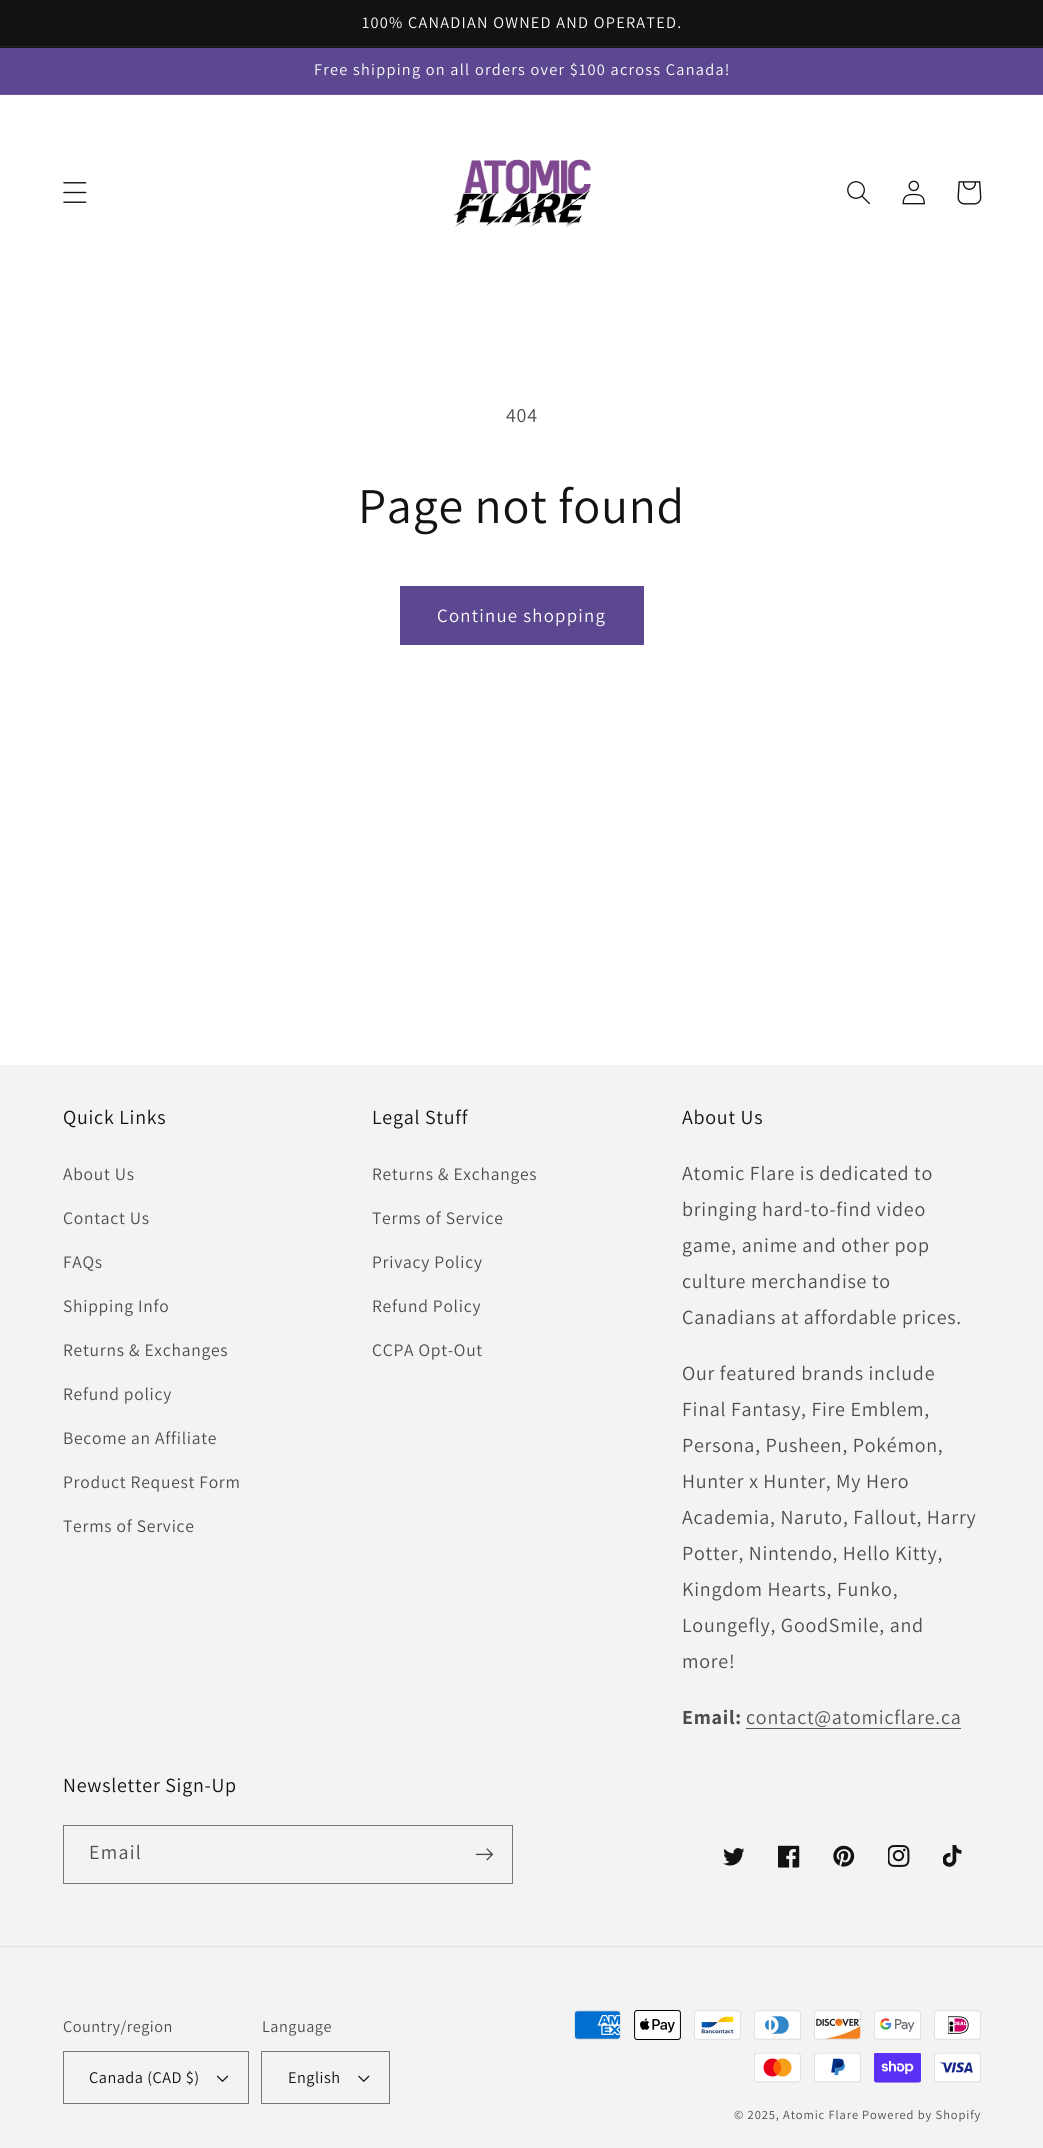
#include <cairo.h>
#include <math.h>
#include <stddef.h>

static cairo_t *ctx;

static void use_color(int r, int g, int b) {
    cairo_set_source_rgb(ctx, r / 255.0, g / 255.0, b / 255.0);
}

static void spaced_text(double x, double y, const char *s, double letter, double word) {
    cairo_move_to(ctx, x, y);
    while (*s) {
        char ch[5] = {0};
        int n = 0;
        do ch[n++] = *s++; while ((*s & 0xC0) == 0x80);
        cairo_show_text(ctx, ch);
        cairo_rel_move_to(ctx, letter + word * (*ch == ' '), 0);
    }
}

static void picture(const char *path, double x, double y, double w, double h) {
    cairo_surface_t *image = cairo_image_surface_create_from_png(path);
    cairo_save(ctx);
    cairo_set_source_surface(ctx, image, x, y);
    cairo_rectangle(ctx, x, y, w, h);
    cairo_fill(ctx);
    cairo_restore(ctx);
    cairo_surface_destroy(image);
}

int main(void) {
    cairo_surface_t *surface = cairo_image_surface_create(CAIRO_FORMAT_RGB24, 1043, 2148);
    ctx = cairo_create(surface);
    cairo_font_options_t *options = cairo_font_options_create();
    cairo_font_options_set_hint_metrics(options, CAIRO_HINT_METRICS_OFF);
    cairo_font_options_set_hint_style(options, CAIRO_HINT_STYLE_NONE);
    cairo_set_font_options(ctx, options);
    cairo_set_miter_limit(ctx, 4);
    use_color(255, 255, 255);
    cairo_paint(ctx);
    use_color(18, 18, 18);
    cairo_rectangle(ctx, 0, 0, 1043, 48);
    cairo_fill(ctx);
    use_color(37, 37, 37);
    cairo_rectangle(ctx, 0, 46, 1043, 1);
    cairo_fill(ctx);
    cairo_select_font_face(ctx, "Assistant", CAIRO_FONT_SLANT_NORMAL, CAIRO_FONT_WEIGHT_NORMAL);
    cairo_set_font_size(ctx, 16.25);
    use_color(255, 255, 255);
    spaced_text(362, 28, "100% CANADIAN OWNED AND OPERATED.", 1.25, 0);
    use_color(92, 72, 144);
    cairo_rectangle(ctx, 0, 48, 1043, 46);
    cairo_fill(ctx);
    use_color(105, 87, 153);
    cairo_rectangle(ctx, 0, 94, 1043, 1);
    cairo_fill(ctx);
    use_color(255, 255, 255);
    spaced_text(314, 75, "Free shipping on all orders over $100 across Canada!", 1.25, 0);
    picture("img1.png", 63, 182, 24, 21);
    picture("img2.png", 453, 159, 139, 69);
    picture("img3.png", 847, 181, 23, 24);
    picture("img4.png", 902, 180, 23, 25);
    picture("img5.png", 957, 181, 25, 24);
    cairo_set_font_size(ctx, 20);
    use_color(77, 77, 77);
    spaced_text(506, 422, "404", 0.75, 0);
    cairo_set_font_size(ctx, 50);
    use_color(18, 18, 18);
    spaced_text(358, 523, "Page not found", 0.75, 0);
    use_color(92, 72, 144);
    cairo_rectangle(ctx, 400, 586, 244, 59);
    cairo_fill(ctx);
    cairo_set_font_size(ctx, 18.75);
    use_color(255, 255, 255);
    spaced_text(437, 622, "Continue shopping", 1.25, 0);
    use_color(243, 243, 243);
    cairo_rectangle(ctx, 0, 1065, 1043, 1083);
    cairo_fill(ctx);
    cairo_set_font_size(ctx, 20);
    use_color(18, 18, 18);
    spaced_text(63, 1124, "Quick Links", 0.75, 0);
    cairo_set_font_size(ctx, 17.5);
    use_color(77, 77, 77);
    spaced_text(63, 1180, "About Us", 0.75, 0);
    spaced_text(63, 1224, "Contact Us", 0.75, 0);
    spaced_text(63, 1268, "FAQs", 0.75, 0);
    spaced_text(63, 1312, "Shipping Info", 0.75, 0);
    spaced_text(63, 1356, "Returns & Exchanges", 0.75, 0);
    spaced_text(63, 1400, "Refund policy", 0.75, 0);
    spaced_text(63, 1444, "Become an Affiliate", 0.75, 0);
    spaced_text(63, 1488, "Product Request Form", 0.75, 0);
    spaced_text(63, 1532, "Terms of Service", 0.75, 0);
    cairo_set_font_size(ctx, 20);
    use_color(18, 18, 18);
    spaced_text(372, 1124, "Legal Stuff", 0.75, 0);
    cairo_set_font_size(ctx, 17.5);
    use_color(77, 77, 77);
    spaced_text(372, 1180, "Returns & Exchanges", 0.75, 0);
    spaced_text(372, 1224, "Terms of Service", 0.75, 0);
    spaced_text(372, 1268, "Privacy Policy", 0.75, 0);
    spaced_text(372, 1312, "Refund Policy", 0.75, 0);
    spaced_text(372, 1356, "CCPA Opt-Out", 0.75, 0);
    cairo_set_font_size(ctx, 20);
    use_color(18, 18, 18);
    spaced_text(682, 1124, "About Us", 0.75, 0);
    use_color(77, 77, 77);
    spaced_text(682, 1180, "Atomic Flare is dedicated to", 0.75, 0);
    spaced_text(682, 1216, "bringing hard-to-find video", 0.75, 0);
    spaced_text(682, 1252, "game, anime and other pop", 0.75, 0);
    spaced_text(682, 1288, "culture merchandise to", 0.75, 0);
    spaced_text(682, 1324, "Canadians at affordable prices.", 0.75, 0);
    spaced_text(682, 1380, "Our featured brands include", 0.75, 0);
    spaced_text(682, 1416, "Final Fantasy, Fire Emblem,", 0.75, 0);
    spaced_text(682, 1452, "Persona, Pusheen, Pokémon,", 0.75, 0);
    spaced_text(682, 1488, "Hunter x Hunter, My Hero", 0.75, 0);
    spaced_text(682, 1524, "Academia, Naruto, Fallout, Harry", 0.75, 0);
    spaced_text(682, 1560, "Potter, Nintendo, Hello Kitty,", 0.75, 0);
    spaced_text(682, 1596, "Kingdom Hearts, Funko,", 0.75, 0);
    spaced_text(682, 1632, "Loungefly, GoodSmile, and", 0.75, 0);
    spaced_text(682, 1668, "more!", 0.75, 0);
    cairo_select_font_face(ctx, "Assistant", CAIRO_FONT_SLANT_NORMAL, CAIRO_FONT_WEIGHT_BOLD);
    spaced_text(682, 1724, "Email:", 0.75, 0);
    cairo_select_font_face(ctx, "Assistant", CAIRO_FONT_SLANT_NORMAL, CAIRO_FONT_WEIGHT_NORMAL);
    use_color(86, 86, 86);
    spaced_text(746, 1724, "contact@atomicflare.ca", 0.75, 0);
    cairo_rectangle(ctx, 746, 1728, 215, 1);
    cairo_fill(ctx);
    use_color(18, 18, 18);
    spaced_text(63, 1792, "Newsletter Sign-Up", 0.75, 0);
    cairo_rectangle(ctx, 63.5, 1825.5, 449, 58);
    use_color(119, 119, 119);
    cairo_set_line_width(ctx, 1);
    cairo_stroke(ctx);
    use_color(77, 77, 77);
    spaced_text(89, 1859, "Email", 1.25, 0);
    picture("img6.png", 475, 1848, 18, 13);
    picture("img7.png", 723, 1848, 22, 18);
    picture("img8.png", 778, 1845, 22, 23);
    picture("img9.png", 833, 1845, 22, 22);
    picture("img10.png", 888, 1845, 22, 22);
    picture("img11.png", 943, 1845, 19, 22);
    use_color(225, 225, 225);
    cairo_rectangle(ctx, 0, 1946, 1043, 1);
    cairo_fill(ctx);
    cairo_set_font_size(ctx, 16.25);
    use_color(77, 77, 77);
    spaced_text(63, 2032, "Country/region", 0.5, 0);
    picture("img12.png", 216, 2075, 13, 7);
    cairo_rectangle(ctx, 63.5, 2051.5, 185, 52);
    use_color(119, 119, 119);
    cairo_stroke(ctx);
    use_color(18, 18, 18);
    spaced_text(89, 2083, "Canada (CAD $)", 0.5, 0);
    use_color(77, 77, 77);
    spaced_text(262, 2032, "Language", 0.5, 0);
    picture("img13.png", 358, 2075, 12, 7);
    cairo_rectangle(ctx, 261.5, 2051.5, 128, 52);
    use_color(119, 119, 119);
    cairo_stroke(ctx);
    use_color(18, 18, 18);
    spaced_text(288, 2083, "English", 0.5, 0);
    picture("img14.png", 574, 2010, 47, 30);
    picture("img15.png", 634, 2010, 47, 30);
    picture("img16.png", 694, 2010, 47, 30);
    picture("img17.png", 754, 2010, 47, 30);
    picture("img18.png", 814, 2010, 47, 30);
    picture("img19.png", 874, 2010, 47, 30);
    picture("img20.png", 934, 2010, 47, 30);
    picture("img21.png", 754, 2053, 47, 30);
    picture("img22.png", 814, 2053, 47, 30);
    picture("img23.png", 874, 2053, 47, 30);
    picture("img24.png", 934, 2053, 47, 30);
    cairo_set_font_size(ctx, 12.5);
    use_color(77, 77, 77);
    spaced_text(734, 2119, "© 2025, Atomic Flare", 0.9, 0);
    spaced_text(862, 2119, "Powered by Shopify", 0.9, 0);
    cairo_surface_write_to_png(surface, "result.png");
    cairo_font_options_destroy(options);
    cairo_destroy(ctx);
    cairo_surface_destroy(surface);
    return 0;
}
